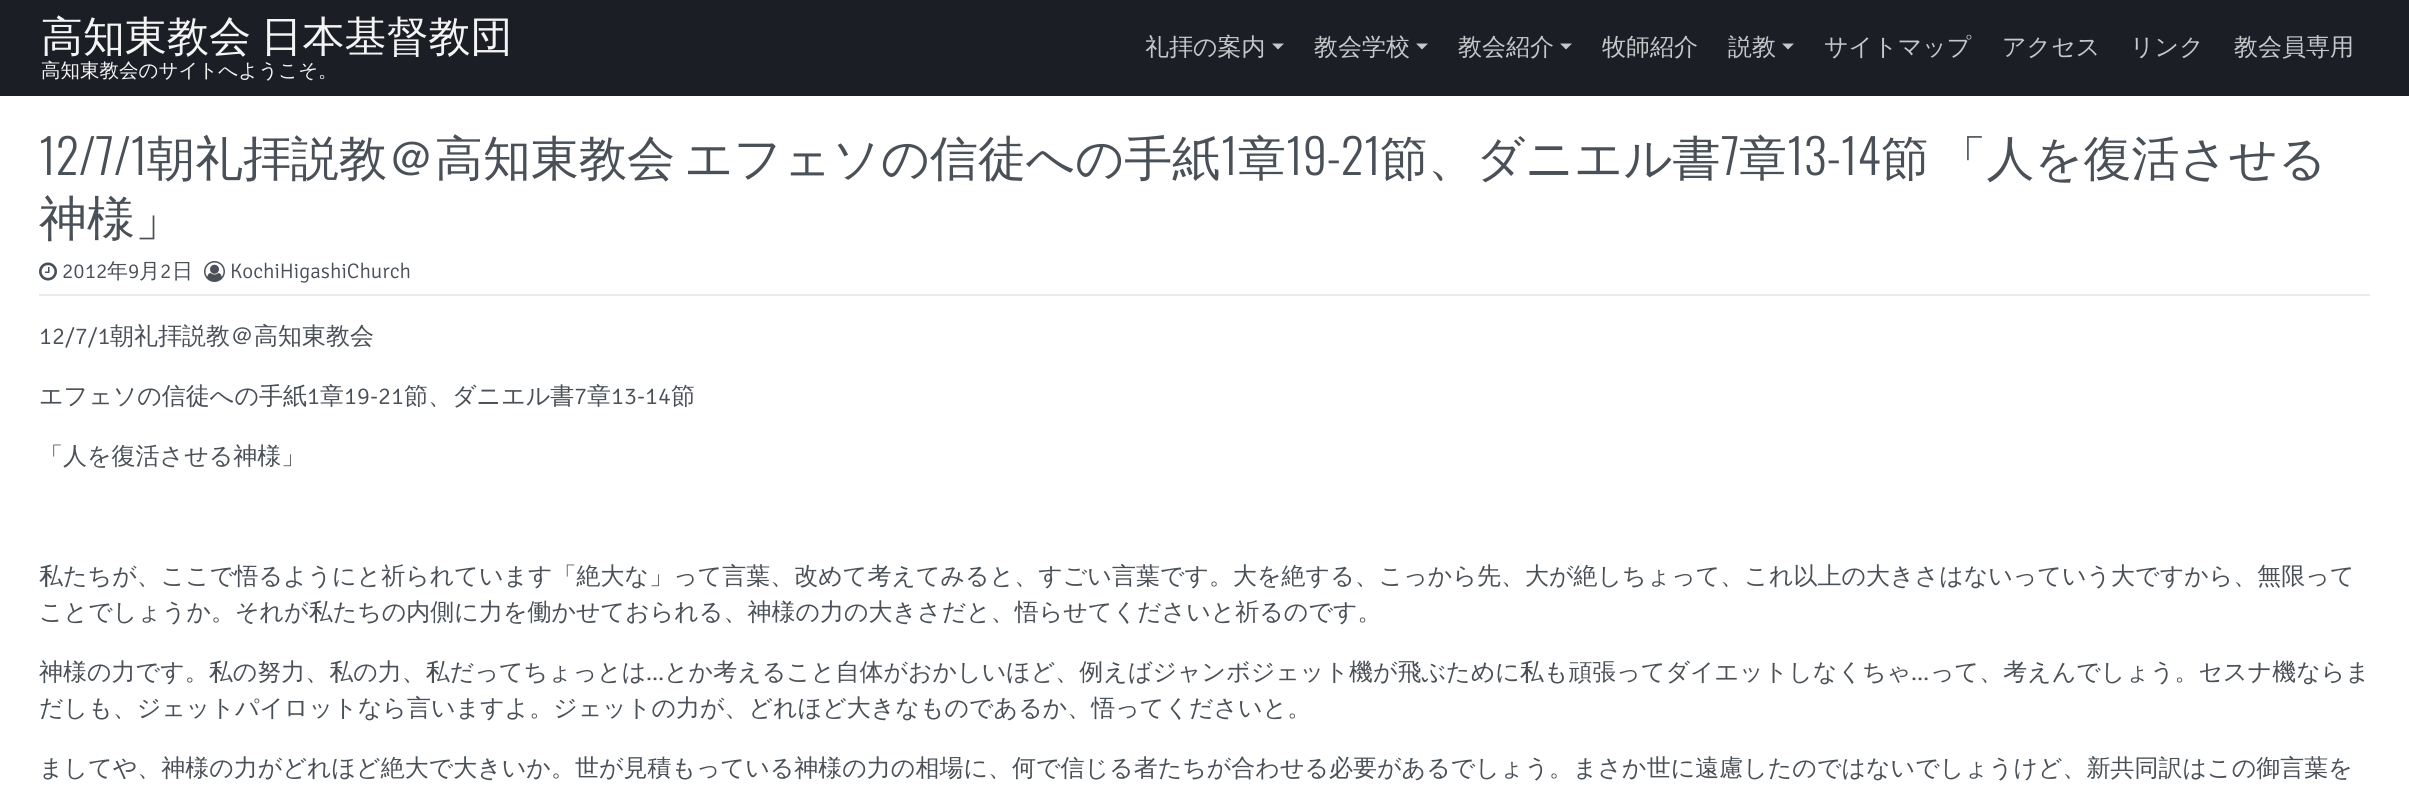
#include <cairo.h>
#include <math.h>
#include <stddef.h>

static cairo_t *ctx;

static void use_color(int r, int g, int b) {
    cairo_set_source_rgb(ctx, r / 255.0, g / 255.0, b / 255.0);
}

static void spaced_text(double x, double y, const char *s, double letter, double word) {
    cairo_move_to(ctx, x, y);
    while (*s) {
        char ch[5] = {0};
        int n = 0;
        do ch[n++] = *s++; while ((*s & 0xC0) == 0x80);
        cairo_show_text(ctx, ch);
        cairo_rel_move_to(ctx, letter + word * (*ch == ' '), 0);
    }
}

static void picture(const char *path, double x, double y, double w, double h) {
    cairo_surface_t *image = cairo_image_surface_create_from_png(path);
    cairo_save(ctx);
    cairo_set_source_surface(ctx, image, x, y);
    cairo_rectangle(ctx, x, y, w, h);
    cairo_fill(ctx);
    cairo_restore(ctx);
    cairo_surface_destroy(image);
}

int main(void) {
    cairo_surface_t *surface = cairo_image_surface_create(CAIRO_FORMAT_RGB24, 2409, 785);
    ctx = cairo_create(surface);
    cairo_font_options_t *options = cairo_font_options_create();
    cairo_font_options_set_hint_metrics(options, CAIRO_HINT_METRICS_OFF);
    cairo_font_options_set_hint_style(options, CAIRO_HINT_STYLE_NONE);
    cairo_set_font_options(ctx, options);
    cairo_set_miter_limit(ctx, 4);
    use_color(255, 255, 255);
    cairo_paint(ctx);
    use_color(28, 30, 38);
    cairo_rectangle(ctx, 0, 0, 2409, 96);
    cairo_fill(ctx);
    cairo_select_font_face(ctx, "WenQuanYi Zen Hei Medium", CAIRO_FONT_SLANT_NORMAL, CAIRO_FONT_WEIGHT_NORMAL);
    cairo_set_font_size(ctx, 42);
    use_color(244, 244, 244);
    spaced_text(41, 51, "高知東教会 日本基督教団", 0, -3);
    cairo_set_font_size(ctx, 19.5);
    cairo_move_to(ctx, 41, 77);
    cairo_show_text(ctx, "高知東教会のサイトへようこそ。");
    cairo_set_font_size(ctx, 24);
    use_color(198, 199, 201);
    cairo_move_to(ctx, 1145, 55);
    cairo_show_text(ctx, "礼拝の案内");
    cairo_new_path(ctx);
    cairo_move_to(ctx, 1272, 43.5);
    cairo_line_to(ctx, 1284, 43.5);
    cairo_line_to(ctx, 1278, 49.5);
    cairo_close_path(ctx);
    cairo_fill(ctx);
    cairo_move_to(ctx, 1314, 55);
    cairo_show_text(ctx, "教会学校");
    cairo_new_path(ctx);
    cairo_move_to(ctx, 1416, 43.5);
    cairo_line_to(ctx, 1428, 43.5);
    cairo_line_to(ctx, 1422, 49.5);
    cairo_close_path(ctx);
    cairo_fill(ctx);
    cairo_move_to(ctx, 1458, 55);
    cairo_show_text(ctx, "教会紹介");
    cairo_new_path(ctx);
    cairo_move_to(ctx, 1560, 43.5);
    cairo_line_to(ctx, 1572, 43.5);
    cairo_line_to(ctx, 1566, 49.5);
    cairo_close_path(ctx);
    cairo_fill(ctx);
    cairo_move_to(ctx, 1602, 55);
    cairo_show_text(ctx, "牧師紹介");
    cairo_move_to(ctx, 1728, 55);
    cairo_show_text(ctx, "説教");
    cairo_new_path(ctx);
    cairo_move_to(ctx, 1782, 43.5);
    cairo_line_to(ctx, 1794, 43.5);
    cairo_line_to(ctx, 1788, 49.5);
    cairo_close_path(ctx);
    cairo_fill(ctx);
    cairo_move_to(ctx, 1824, 55);
    cairo_show_text(ctx, "サイトマップ");
    cairo_move_to(ctx, 2002, 55);
    cairo_show_text(ctx, "アクセス");
    cairo_move_to(ctx, 2130, 55);
    cairo_show_text(ctx, "リンク");
    cairo_move_to(ctx, 2234, 55);
    cairo_show_text(ctx, "教会員専用");
    cairo_select_font_face(ctx, "Oswald Light", CAIRO_FONT_SLANT_NORMAL, CAIRO_FONT_WEIGHT_NORMAL);
    cairo_set_font_size(ctx, 48);
    use_color(73, 80, 87);
    cairo_move_to(ctx, 39, 175);
    cairo_show_text(ctx, "12/7/1");
    cairo_select_font_face(ctx, "WenQuanYi Zen Hei Medium", CAIRO_FONT_SLANT_NORMAL, CAIRO_FONT_WEIGHT_NORMAL);
    spaced_text(147, 175, "朝礼拝説教＠高知東教会 エフェソの信徒への手紙", 0, -5);
    cairo_select_font_face(ctx, "Oswald Light", CAIRO_FONT_SLANT_NORMAL, CAIRO_FONT_WEIGHT_NORMAL);
    cairo_move_to(ctx, 1221, 175);
    cairo_show_text(ctx, "1");
    cairo_select_font_face(ctx, "WenQuanYi Zen Hei Medium", CAIRO_FONT_SLANT_NORMAL, CAIRO_FONT_WEIGHT_NORMAL);
    cairo_move_to(ctx, 1238, 175);
    cairo_show_text(ctx, "章");
    cairo_select_font_face(ctx, "Oswald Light", CAIRO_FONT_SLANT_NORMAL, CAIRO_FONT_WEIGHT_NORMAL);
    cairo_move_to(ctx, 1286, 175);
    cairo_show_text(ctx, "19-21");
    cairo_select_font_face(ctx, "WenQuanYi Zen Hei Medium", CAIRO_FONT_SLANT_NORMAL, CAIRO_FONT_WEIGHT_NORMAL);
    cairo_move_to(ctx, 1380, 175);
    cairo_show_text(ctx, "節、ダニエル書");
    cairo_select_font_face(ctx, "Oswald Light", CAIRO_FONT_SLANT_NORMAL, CAIRO_FONT_WEIGHT_NORMAL);
    cairo_move_to(ctx, 1721, 175);
    cairo_show_text(ctx, "7");
    cairo_select_font_face(ctx, "WenQuanYi Zen Hei Medium", CAIRO_FONT_SLANT_NORMAL, CAIRO_FONT_WEIGHT_NORMAL);
    cairo_move_to(ctx, 1739, 175);
    cairo_show_text(ctx, "章");
    cairo_select_font_face(ctx, "Oswald Light", CAIRO_FONT_SLANT_NORMAL, CAIRO_FONT_WEIGHT_NORMAL);
    cairo_move_to(ctx, 1787, 175);
    cairo_show_text(ctx, "13-14");
    cairo_select_font_face(ctx, "WenQuanYi Zen Hei Medium", CAIRO_FONT_SLANT_NORMAL, CAIRO_FONT_WEIGHT_NORMAL);
    spaced_text(1881, 175, "節 「人を復活させる", 0, -5);
    cairo_move_to(ctx, 39, 235);
    cairo_show_text(ctx, "神様」");
    use_color(233, 236, 239);
    cairo_rectangle(ctx, 39, 294, 2331, 2);
    cairo_fill(ctx);
    picture("img1.png", 39, 262, 18, 19);
    cairo_select_font_face(ctx, "Signika Light", CAIRO_FONT_SLANT_NORMAL, CAIRO_FONT_WEIGHT_NORMAL);
    cairo_set_font_size(ctx, 21);
    use_color(73, 80, 87);
    cairo_move_to(ctx, 62, 278);
    cairo_show_text(ctx, "2012");
    cairo_select_font_face(ctx, "WenQuanYi Zen Hei Medium", CAIRO_FONT_SLANT_NORMAL, CAIRO_FONT_WEIGHT_NORMAL);
    cairo_move_to(ctx, 107, 278);
    cairo_show_text(ctx, "年");
    cairo_select_font_face(ctx, "Signika Light", CAIRO_FONT_SLANT_NORMAL, CAIRO_FONT_WEIGHT_NORMAL);
    cairo_move_to(ctx, 128, 278);
    cairo_show_text(ctx, "9");
    cairo_select_font_face(ctx, "WenQuanYi Zen Hei Medium", CAIRO_FONT_SLANT_NORMAL, CAIRO_FONT_WEIGHT_NORMAL);
    cairo_move_to(ctx, 139, 278);
    cairo_show_text(ctx, "月");
    cairo_select_font_face(ctx, "Signika Light", CAIRO_FONT_SLANT_NORMAL, CAIRO_FONT_WEIGHT_NORMAL);
    cairo_move_to(ctx, 160, 278);
    cairo_show_text(ctx, "2");
    cairo_select_font_face(ctx, "WenQuanYi Zen Hei Medium", CAIRO_FONT_SLANT_NORMAL, CAIRO_FONT_WEIGHT_NORMAL);
    cairo_move_to(ctx, 172, 278);
    cairo_show_text(ctx, "日");
    picture("img2.png", 204, 261, 21, 21);
    cairo_select_font_face(ctx, "Signika Light", CAIRO_FONT_SLANT_NORMAL, CAIRO_FONT_WEIGHT_NORMAL);
    cairo_move_to(ctx, 230, 278);
    cairo_show_text(ctx, "KochiHigashiChurch");
    cairo_set_font_size(ctx, 24);
    cairo_move_to(ctx, 39, 344);
    cairo_show_text(ctx, "12/7/1");
    cairo_select_font_face(ctx, "WenQuanYi Zen Hei Medium", CAIRO_FONT_SLANT_NORMAL, CAIRO_FONT_WEIGHT_NORMAL);
    cairo_move_to(ctx, 110, 344);
    cairo_show_text(ctx, "朝礼拝説教＠高知東教会");
    cairo_move_to(ctx, 39, 404);
    cairo_show_text(ctx, "エフェソの信徒への手紙");
    cairo_select_font_face(ctx, "Signika Light", CAIRO_FONT_SLANT_NORMAL, CAIRO_FONT_WEIGHT_NORMAL);
    cairo_move_to(ctx, 307, 404);
    cairo_show_text(ctx, "1");
    cairo_select_font_face(ctx, "WenQuanYi Zen Hei Medium", CAIRO_FONT_SLANT_NORMAL, CAIRO_FONT_WEIGHT_NORMAL);
    cairo_move_to(ctx, 320, 404);
    cairo_show_text(ctx, "章");
    cairo_select_font_face(ctx, "Signika Light", CAIRO_FONT_SLANT_NORMAL, CAIRO_FONT_WEIGHT_NORMAL);
    cairo_move_to(ctx, 344, 404);
    cairo_show_text(ctx, "19-21");
    cairo_select_font_face(ctx, "WenQuanYi Zen Hei Medium", CAIRO_FONT_SLANT_NORMAL, CAIRO_FONT_WEIGHT_NORMAL);
    cairo_move_to(ctx, 404, 404);
    cairo_show_text(ctx, "節、ダニエル書");
    cairo_select_font_face(ctx, "Signika Light", CAIRO_FONT_SLANT_NORMAL, CAIRO_FONT_WEIGHT_NORMAL);
    cairo_move_to(ctx, 574, 404);
    cairo_show_text(ctx, "7");
    cairo_select_font_face(ctx, "WenQuanYi Zen Hei Medium", CAIRO_FONT_SLANT_NORMAL, CAIRO_FONT_WEIGHT_NORMAL);
    cairo_move_to(ctx, 587, 404);
    cairo_show_text(ctx, "章");
    cairo_select_font_face(ctx, "Signika Light", CAIRO_FONT_SLANT_NORMAL, CAIRO_FONT_WEIGHT_NORMAL);
    cairo_move_to(ctx, 611, 404);
    cairo_show_text(ctx, "13-14");
    cairo_select_font_face(ctx, "WenQuanYi Zen Hei Medium", CAIRO_FONT_SLANT_NORMAL, CAIRO_FONT_WEIGHT_NORMAL);
    cairo_move_to(ctx, 671, 404);
    cairo_show_text(ctx, "節");
    cairo_move_to(ctx, 39, 464);
    cairo_show_text(ctx, "「人を復活させる神様」");
    cairo_move_to(ctx, 39, 584);
    cairo_show_text(ctx, "私たちが、ここで悟るようにと祈られています「絶大な」って言葉、改めて考えてみると、すごい言葉です。大を絶する、こっから先、大が絶しちょって、これ以上の大きさはないっていう大ですから、無限って");
    cairo_move_to(ctx, 39, 620);
    cairo_show_text(ctx, "ことでしょうか。それが私たちの内側に力を働かせておられる、神様の力の大きさだと、悟らせてくださいと祈るのです。");
    cairo_move_to(ctx, 39, 680);
    cairo_show_text(ctx, "神様の力です。私の努力、私の力、私だってちょっとは");
    cairo_select_font_face(ctx, "Signika Light", CAIRO_FONT_SLANT_NORMAL, CAIRO_FONT_WEIGHT_NORMAL);
    cairo_move_to(ctx, 646, 680);
    cairo_show_text(ctx, "…");
    cairo_select_font_face(ctx, "WenQuanYi Zen Hei Medium", CAIRO_FONT_SLANT_NORMAL, CAIRO_FONT_WEIGHT_NORMAL);
    cairo_move_to(ctx, 664, 680);
    cairo_show_text(ctx, "とか考えること自体がおかしいほど、例えばジャンボジェット機が飛ぶために私も頑張ってダイエットしなくちゃ");
    cairo_select_font_face(ctx, "Signika Light", CAIRO_FONT_SLANT_NORMAL, CAIRO_FONT_WEIGHT_NORMAL);
    cairo_move_to(ctx, 1911, 680);
    cairo_show_text(ctx, "…");
    cairo_select_font_face(ctx, "WenQuanYi Zen Hei Medium", CAIRO_FONT_SLANT_NORMAL, CAIRO_FONT_WEIGHT_NORMAL);
    cairo_move_to(ctx, 1930, 680);
    cairo_show_text(ctx, "って、考えんでしょう。セスナ機ならま");
    cairo_move_to(ctx, 39, 716);
    cairo_show_text(ctx, "だしも、ジェットパイロットなら言いますよ。ジェットの力が、どれほど大きなものであるか、悟ってくださいと。");
    cairo_move_to(ctx, 39, 776);
    cairo_show_text(ctx, "ましてや、神様の力がどれほど絶大で大きいか。世が見積もっている神様の力の相場に、何で信じる者たちが合わせる必要があるでしょう。まさか世に遠慮したのではないでしょうけど、新共同訳はこの御言葉を");
    cairo_surface_write_to_png(surface, "result.png");
    cairo_font_options_destroy(options);
    cairo_destroy(ctx);
    cairo_surface_destroy(surface);
    return 0;
}
